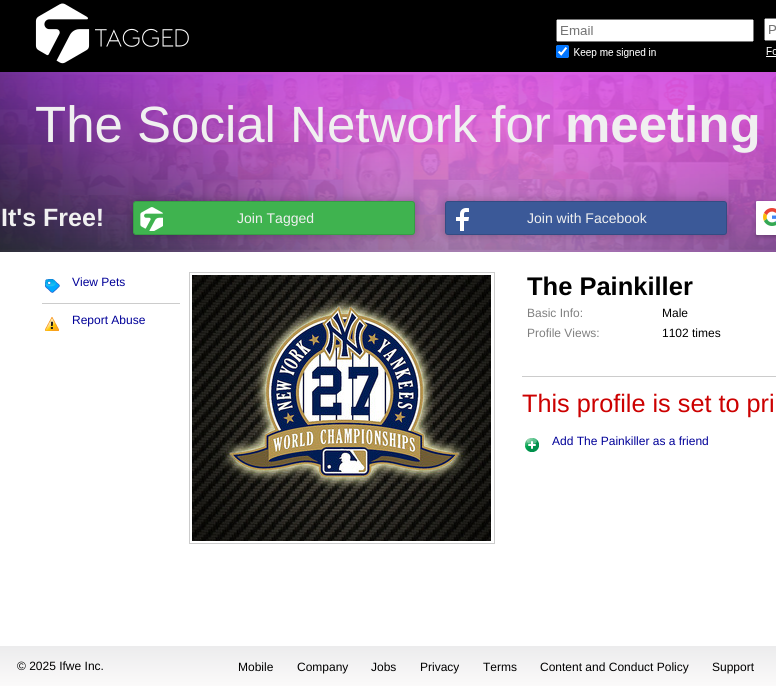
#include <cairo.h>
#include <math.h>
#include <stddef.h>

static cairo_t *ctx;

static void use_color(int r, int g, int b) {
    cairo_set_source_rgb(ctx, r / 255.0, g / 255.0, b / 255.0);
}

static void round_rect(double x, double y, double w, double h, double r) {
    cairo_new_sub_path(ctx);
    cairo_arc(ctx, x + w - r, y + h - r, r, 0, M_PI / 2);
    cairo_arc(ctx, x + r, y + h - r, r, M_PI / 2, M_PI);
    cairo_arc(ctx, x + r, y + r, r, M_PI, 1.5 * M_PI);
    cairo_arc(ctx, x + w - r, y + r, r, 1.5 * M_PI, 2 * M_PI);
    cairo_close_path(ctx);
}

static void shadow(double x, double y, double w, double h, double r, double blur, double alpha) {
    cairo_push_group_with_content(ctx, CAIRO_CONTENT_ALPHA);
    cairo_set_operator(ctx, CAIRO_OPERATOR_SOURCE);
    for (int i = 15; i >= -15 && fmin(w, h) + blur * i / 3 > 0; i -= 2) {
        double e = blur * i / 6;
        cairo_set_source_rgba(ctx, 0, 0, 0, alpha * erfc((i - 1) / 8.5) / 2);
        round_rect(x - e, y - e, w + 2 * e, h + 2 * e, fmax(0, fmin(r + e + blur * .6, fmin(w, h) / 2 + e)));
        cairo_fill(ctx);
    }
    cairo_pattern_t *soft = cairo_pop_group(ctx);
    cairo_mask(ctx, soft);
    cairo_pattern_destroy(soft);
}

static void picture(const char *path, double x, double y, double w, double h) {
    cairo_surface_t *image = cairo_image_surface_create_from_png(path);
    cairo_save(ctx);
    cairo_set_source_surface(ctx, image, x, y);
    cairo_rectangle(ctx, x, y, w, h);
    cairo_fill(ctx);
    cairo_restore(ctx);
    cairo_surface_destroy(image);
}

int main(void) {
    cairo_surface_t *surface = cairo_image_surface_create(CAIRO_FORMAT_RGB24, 776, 686);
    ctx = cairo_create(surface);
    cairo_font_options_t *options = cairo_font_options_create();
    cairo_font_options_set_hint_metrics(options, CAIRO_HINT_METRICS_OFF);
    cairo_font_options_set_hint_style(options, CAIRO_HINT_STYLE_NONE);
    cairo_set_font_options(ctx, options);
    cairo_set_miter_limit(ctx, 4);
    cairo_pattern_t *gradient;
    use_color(255, 255, 255);
    cairo_paint(ctx);
    use_color(0, 0, 0);
    cairo_rectangle(ctx, 0, 0, 776, 72);
    cairo_fill(ctx);
    picture("img1.png", 35, 3, 154, 61);
    picture("img2.png", 556, 18, 220, 40);
    picture("img3.png", 0, 72, 776, 180);
    cairo_select_font_face(ctx, "Liberation Sans", CAIRO_FONT_SLANT_NORMAL, CAIRO_FONT_WEIGHT_NORMAL);
    cairo_set_font_size(ctx, 51);
    use_color(240, 240, 240);
    cairo_move_to(ctx, 35, 142);
    cairo_show_text(ctx, "The Social Network for");
    cairo_select_font_face(ctx, "Liberation Sans", CAIRO_FONT_SLANT_NORMAL, CAIRO_FONT_WEIGHT_BOLD);
    cairo_move_to(ctx, 565, 142);
    cairo_show_text(ctx, "meeting");
    cairo_set_font_size(ctx, 25);
    cairo_move_to(ctx, 1, 226);
    cairo_show_text(ctx, "It's Free!");
    use_color(0, 0, 0);
    shadow(133, 201, 282, 34, 3, 4.5, 0.25);
    use_color(63, 179, 79);
    round_rect(133.5, 201.5, 281, 33, 2.5);
    cairo_fill_preserve(ctx);
    use_color(55, 157, 69);
    cairo_set_line_width(ctx, 1);
    cairo_stroke(ctx);
    picture("img4.png", 140, 207, 23, 24);
    cairo_select_font_face(ctx, "Liberation Sans", CAIRO_FONT_SLANT_NORMAL, CAIRO_FONT_WEIGHT_NORMAL);
    cairo_set_font_size(ctx, 14);
    use_color(240, 240, 240);
    cairo_move_to(ctx, 237, 223);
    cairo_show_text(ctx, "Join Tagged");
    use_color(0, 0, 0);
    shadow(445, 201, 282, 34, 3, 4.5, 0.25);
    use_color(59, 89, 152);
    round_rect(445.5, 201.5, 281, 33, 2.5);
    cairo_fill_preserve(ctx);
    use_color(51, 76, 131);
    cairo_stroke(ctx);
    picture("img5.png", 456, 208, 13, 23);
    use_color(240, 240, 240);
    cairo_move_to(ctx, 527, 223);
    cairo_show_text(ctx, "Join with Facebook");
    use_color(0, 0, 0);
    shadow(756, 203, 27, 34, 1, 2, 0.25);
    use_color(255, 255, 255);
    round_rect(756, 201, 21, 34, 1);
    cairo_fill(ctx);
    picture("img6.png", 763, 208, 13, 18);
    picture("img7.png", 45, 279, 15, 14);
    cairo_set_font_size(ctx, 12);
    use_color(0, 0, 152);
    cairo_move_to(ctx, 72, 286);
    cairo_show_text(ctx, "View Pets");
    use_color(204, 204, 204);
    cairo_rectangle(ctx, 42, 303, 138, 1);
    cairo_fill(ctx);
    picture("img8.png", 45, 317, 14, 14);
    use_color(0, 0, 152);
    cairo_move_to(ctx, 72, 324);
    cairo_show_text(ctx, "Report Abuse");
    cairo_rectangle(ctx, 189.5, 272.5, 305, 271);
    use_color(204, 204, 204);
    cairo_stroke(ctx);
    picture("img9.png", 192, 275, 299, 266);
    cairo_select_font_face(ctx, "Liberation Sans", CAIRO_FONT_SLANT_NORMAL, CAIRO_FONT_WEIGHT_BOLD);
    cairo_set_font_size(ctx, 25.5);
    use_color(0, 0, 0);
    cairo_move_to(ctx, 527, 295);
    cairo_show_text(ctx, "The Painkiller");
    cairo_select_font_face(ctx, "Liberation Sans", CAIRO_FONT_SLANT_NORMAL, CAIRO_FONT_WEIGHT_NORMAL);
    cairo_set_font_size(ctx, 12);
    use_color(128, 128, 128);
    cairo_move_to(ctx, 527, 317);
    cairo_show_text(ctx, "Basic Info:");
    use_color(0, 0, 0);
    cairo_move_to(ctx, 662, 317);
    cairo_show_text(ctx, "Male");
    use_color(128, 128, 128);
    cairo_move_to(ctx, 527, 337);
    cairo_show_text(ctx, "Profile Views:");
    use_color(0, 0, 0);
    cairo_move_to(ctx, 662, 337);
    cairo_show_text(ctx, "1102 times");
    use_color(204, 204, 204);
    cairo_rectangle(ctx, 522, 376, 254, 1);
    cairo_fill(ctx);
    cairo_set_font_size(ctx, 25.25);
    use_color(204, 0, 0);
    cairo_move_to(ctx, 522, 412);
    cairo_show_text(ctx, "This profile is set to pri");
    picture("img10.png", 525, 438, 14, 14);
    cairo_set_font_size(ctx, 12);
    use_color(0, 0, 152);
    cairo_move_to(ctx, 552, 445);
    cairo_show_text(ctx, "Add The Painkiller as a friend");
    gradient = cairo_pattern_create_linear(388, 646, 388, 686);
    cairo_pattern_add_color_stop_rgba(gradient, 0, 0.925, 0.925, 0.929, 1);
    cairo_pattern_add_color_stop_rgba(gradient, 1, 0.984, 0.98, 0.98, 1);
    cairo_set_source(ctx, gradient);
    cairo_pattern_destroy(gradient);
    cairo_rectangle(ctx, 0, 646, 776, 40);
    cairo_fill(ctx);
    use_color(0, 0, 0);
    cairo_move_to(ctx, 17, 670);
    cairo_show_text(ctx, "© 2025 Ifwe Inc.");
    cairo_move_to(ctx, 238, 671);
    cairo_show_text(ctx, "Mobile");
    cairo_move_to(ctx, 297, 671);
    cairo_show_text(ctx, "Company");
    cairo_move_to(ctx, 371, 671);
    cairo_show_text(ctx, "Jobs");
    cairo_move_to(ctx, 420, 671);
    cairo_show_text(ctx, "Privacy");
    cairo_move_to(ctx, 483, 671);
    cairo_show_text(ctx, "Terms");
    cairo_move_to(ctx, 540, 671);
    cairo_show_text(ctx, "Content and Conduct Policy");
    cairo_move_to(ctx, 712, 671);
    cairo_show_text(ctx, "Support");
    cairo_surface_write_to_png(surface, "result.png");
    cairo_font_options_destroy(options);
    cairo_destroy(ctx);
    cairo_surface_destroy(surface);
    return 0;
}
